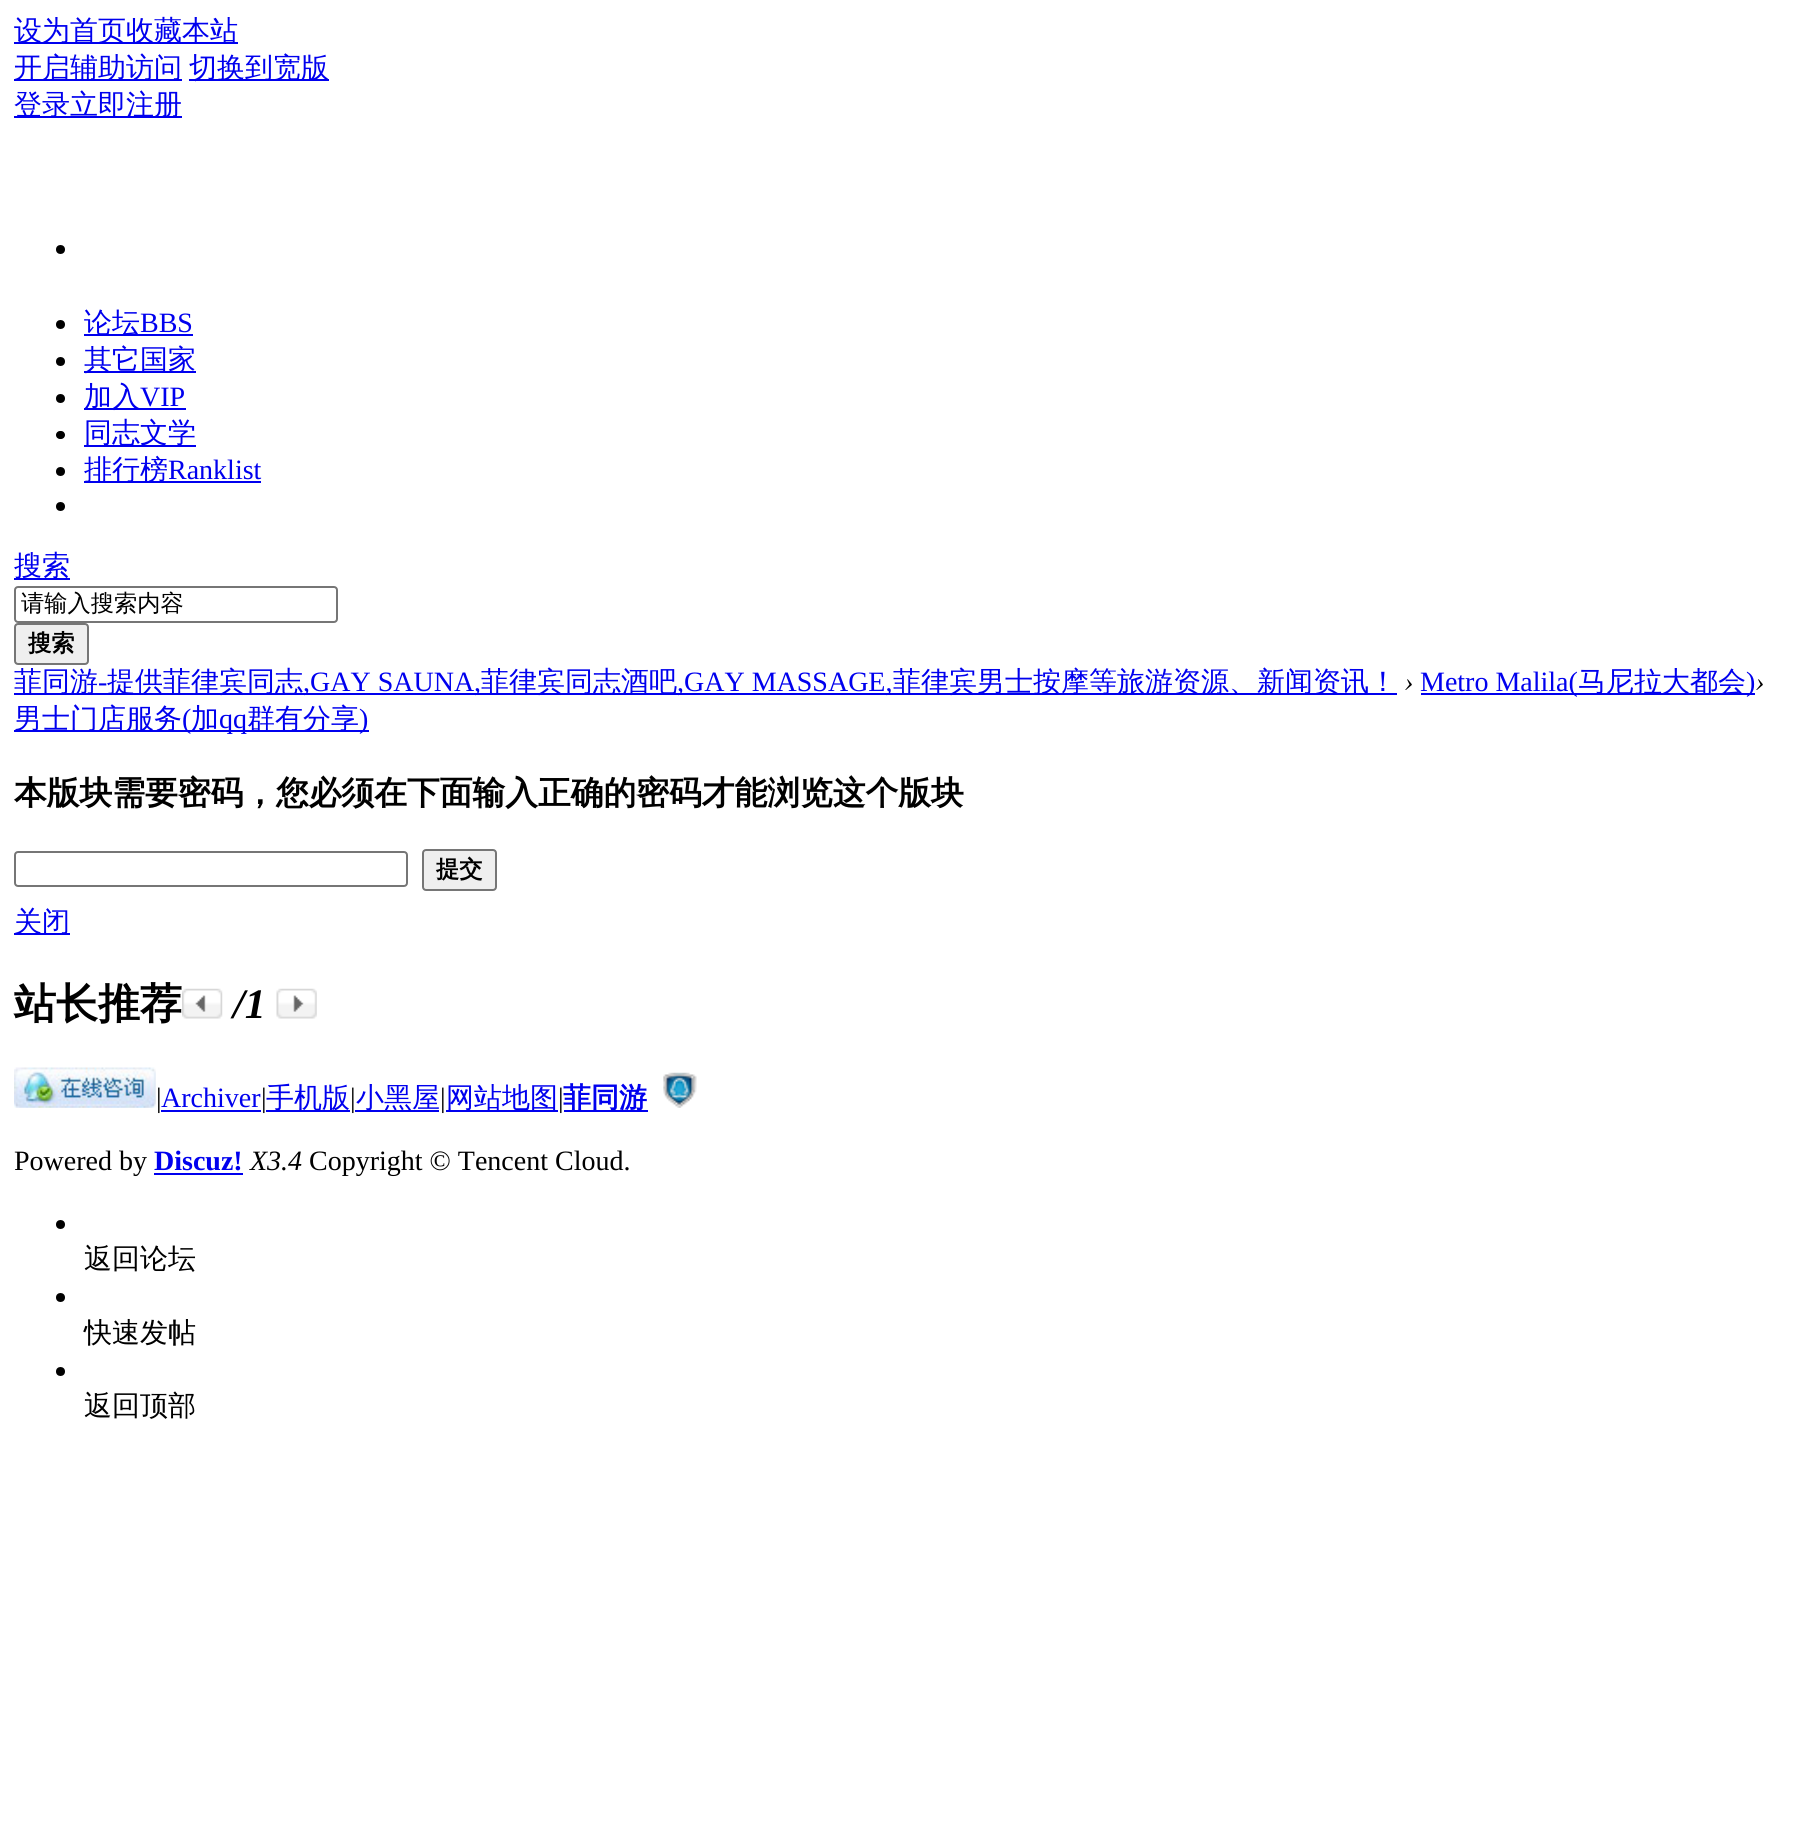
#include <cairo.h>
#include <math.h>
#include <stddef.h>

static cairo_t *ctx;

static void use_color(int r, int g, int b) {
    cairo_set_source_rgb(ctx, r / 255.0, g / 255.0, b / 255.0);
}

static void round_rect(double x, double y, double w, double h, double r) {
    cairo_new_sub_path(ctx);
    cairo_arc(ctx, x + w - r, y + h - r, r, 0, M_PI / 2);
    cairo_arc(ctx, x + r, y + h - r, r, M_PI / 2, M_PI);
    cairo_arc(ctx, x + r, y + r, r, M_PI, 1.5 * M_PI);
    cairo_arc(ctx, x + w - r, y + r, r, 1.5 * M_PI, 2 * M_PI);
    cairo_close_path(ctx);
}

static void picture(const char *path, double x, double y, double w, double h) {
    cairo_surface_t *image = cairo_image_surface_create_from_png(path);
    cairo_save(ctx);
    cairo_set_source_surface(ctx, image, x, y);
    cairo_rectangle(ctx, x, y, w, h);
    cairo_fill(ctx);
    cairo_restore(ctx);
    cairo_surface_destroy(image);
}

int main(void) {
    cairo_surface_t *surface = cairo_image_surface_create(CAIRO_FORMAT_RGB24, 1794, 1837);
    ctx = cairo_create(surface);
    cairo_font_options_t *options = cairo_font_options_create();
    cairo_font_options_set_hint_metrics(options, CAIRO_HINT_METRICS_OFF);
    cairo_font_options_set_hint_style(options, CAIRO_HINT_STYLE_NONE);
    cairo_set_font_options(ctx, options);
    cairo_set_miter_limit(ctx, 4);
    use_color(255, 255, 255);
    cairo_paint(ctx);
    use_color(0, 0, 238);
    cairo_rectangle(ctx, 14, 42, 224, 2);
    cairo_fill(ctx);
    cairo_select_font_face(ctx, "WenQuanYi Zen Hei Medium", CAIRO_FONT_SLANT_NORMAL, CAIRO_FONT_WEIGHT_NORMAL);
    cairo_set_font_size(ctx, 28);
    cairo_move_to(ctx, 14, 40);
    cairo_show_text(ctx, "设为首页收藏本站");
    cairo_rectangle(ctx, 14, 79, 168, 2);
    cairo_fill(ctx);
    cairo_move_to(ctx, 14, 77);
    cairo_show_text(ctx, "开启辅助访问");
    cairo_rectangle(ctx, 189, 79, 140, 2);
    cairo_fill(ctx);
    cairo_move_to(ctx, 189, 77);
    cairo_show_text(ctx, "切换到宽版");
    cairo_rectangle(ctx, 14, 116, 168, 2);
    cairo_fill(ctx);
    cairo_move_to(ctx, 14, 114);
    cairo_show_text(ctx, "登录立即注册");
    use_color(0, 0, 0);
    cairo_new_path(ctx);
    cairo_arc(ctx, 60.5, 249.5, 4.5, 0, 2 * M_PI);
    cairo_fill(ctx);
    cairo_arc(ctx, 60.5, 324.5, 4.5, 0, 2 * M_PI);
    cairo_fill(ctx);
    use_color(0, 0, 238);
    cairo_rectangle(ctx, 84, 334, 109, 2);
    cairo_fill(ctx);
    cairo_move_to(ctx, 84, 332);
    cairo_show_text(ctx, "论坛");
    cairo_select_font_face(ctx, "Liberation Serif", CAIRO_FONT_SLANT_NORMAL, CAIRO_FONT_WEIGHT_NORMAL);
    cairo_move_to(ctx, 140, 332);
    cairo_show_text(ctx, "BBS");
    use_color(0, 0, 0);
    cairo_new_path(ctx);
    cairo_arc(ctx, 60.5, 361.5, 4.5, 0, 2 * M_PI);
    cairo_fill(ctx);
    use_color(0, 0, 238);
    cairo_rectangle(ctx, 84, 371, 112, 2);
    cairo_fill(ctx);
    cairo_select_font_face(ctx, "WenQuanYi Zen Hei Medium", CAIRO_FONT_SLANT_NORMAL, CAIRO_FONT_WEIGHT_NORMAL);
    cairo_move_to(ctx, 84, 369);
    cairo_show_text(ctx, "其它国家");
    use_color(0, 0, 0);
    cairo_new_path(ctx);
    cairo_arc(ctx, 60.5, 398.5, 4.5, 0, 2 * M_PI);
    cairo_fill(ctx);
    use_color(0, 0, 238);
    cairo_rectangle(ctx, 84, 408, 102, 2);
    cairo_fill(ctx);
    cairo_move_to(ctx, 84, 406);
    cairo_show_text(ctx, "加入");
    cairo_select_font_face(ctx, "Liberation Serif", CAIRO_FONT_SLANT_NORMAL, CAIRO_FONT_WEIGHT_NORMAL);
    cairo_move_to(ctx, 140, 406);
    cairo_show_text(ctx, "VIP");
    use_color(0, 0, 0);
    round_rect(56, 431, 9, 8, 4);
    cairo_fill(ctx);
    use_color(0, 0, 238);
    cairo_rectangle(ctx, 84, 445, 112, 2);
    cairo_fill(ctx);
    cairo_select_font_face(ctx, "WenQuanYi Zen Hei Medium", CAIRO_FONT_SLANT_NORMAL, CAIRO_FONT_WEIGHT_NORMAL);
    cairo_move_to(ctx, 84, 442);
    cairo_show_text(ctx, "同志文学");
    use_color(0, 0, 0);
    cairo_new_path(ctx);
    cairo_arc(ctx, 60.5, 471.5, 4.5, 0, 2 * M_PI);
    cairo_fill(ctx);
    use_color(0, 0, 238);
    cairo_rectangle(ctx, 84, 481, 177, 2);
    cairo_fill(ctx);
    cairo_move_to(ctx, 84, 479);
    cairo_show_text(ctx, "排行榜");
    cairo_select_font_face(ctx, "Liberation Serif", CAIRO_FONT_SLANT_NORMAL, CAIRO_FONT_WEIGHT_NORMAL);
    cairo_move_to(ctx, 168, 479);
    cairo_show_text(ctx, "Ranklist");
    use_color(0, 0, 0);
    cairo_new_path(ctx);
    cairo_arc(ctx, 60.5, 506.5, 4.5, 0, 2 * M_PI);
    cairo_fill(ctx);
    use_color(0, 0, 238);
    cairo_rectangle(ctx, 14, 578, 56, 2);
    cairo_fill(ctx);
    cairo_select_font_face(ctx, "WenQuanYi Zen Hei Medium", CAIRO_FONT_SLANT_NORMAL, CAIRO_FONT_WEIGHT_NORMAL);
    cairo_move_to(ctx, 14, 575);
    cairo_show_text(ctx, "搜索");
    round_rect(15, 587, 322, 35, 3);
    use_color(118, 118, 118);
    cairo_stroke(ctx);
    cairo_set_font_size(ctx, 23.25);
    use_color(0, 0, 0);
    cairo_move_to(ctx, 21, 611);
    cairo_show_text(ctx, "请输入搜索内容");
    use_color(239, 239, 239);
    round_rect(15, 624, 73, 40, 3);
    cairo_fill_preserve(ctx);
    use_color(118, 118, 118);
    cairo_stroke(ctx);
    cairo_select_font_face(ctx, "WenQuanYi Zen Hei", CAIRO_FONT_SLANT_NORMAL, CAIRO_FONT_WEIGHT_BOLD);
    use_color(0, 0, 0);
    cairo_move_to(ctx, 28, 651);
    cairo_show_text(ctx, "搜索");
    use_color(0, 0, 238);
    cairo_rectangle(ctx, 14, 693, 1383, 2);
    cairo_fill(ctx);
    cairo_select_font_face(ctx, "WenQuanYi Zen Hei Medium", CAIRO_FONT_SLANT_NORMAL, CAIRO_FONT_WEIGHT_NORMAL);
    cairo_set_font_size(ctx, 28);
    cairo_move_to(ctx, 14, 691);
    cairo_show_text(ctx, "菲同游");
    cairo_select_font_face(ctx, "Liberation Serif", CAIRO_FONT_SLANT_NORMAL, CAIRO_FONT_WEIGHT_NORMAL);
    cairo_move_to(ctx, 98, 691);
    cairo_show_text(ctx, "-");
    cairo_select_font_face(ctx, "WenQuanYi Zen Hei Medium", CAIRO_FONT_SLANT_NORMAL, CAIRO_FONT_WEIGHT_NORMAL);
    cairo_move_to(ctx, 107, 691);
    cairo_show_text(ctx, "提供菲律宾同志");
    cairo_select_font_face(ctx, "Liberation Serif", CAIRO_FONT_SLANT_NORMAL, CAIRO_FONT_WEIGHT_NORMAL);
    cairo_move_to(ctx, 303, 691);
    cairo_show_text(ctx, ",GAY SAUNA,");
    cairo_select_font_face(ctx, "WenQuanYi Zen Hei Medium", CAIRO_FONT_SLANT_NORMAL, CAIRO_FONT_WEIGHT_NORMAL);
    cairo_move_to(ctx, 481, 691);
    cairo_show_text(ctx, "菲律宾同志酒吧");
    cairo_select_font_face(ctx, "Liberation Serif", CAIRO_FONT_SLANT_NORMAL, CAIRO_FONT_WEIGHT_NORMAL);
    cairo_move_to(ctx, 677, 691);
    cairo_show_text(ctx, ",GAY MASSAGE,");
    cairo_select_font_face(ctx, "WenQuanYi Zen Hei Medium", CAIRO_FONT_SLANT_NORMAL, CAIRO_FONT_WEIGHT_NORMAL);
    cairo_move_to(ctx, 893, 691);
    cairo_show_text(ctx, "菲律宾男士按摩等旅游资源、新闻资讯！");
    cairo_select_font_face(ctx, "Liberation Serif", CAIRO_FONT_SLANT_ITALIC, CAIRO_FONT_WEIGHT_NORMAL);
    use_color(0, 0, 0);
    cairo_move_to(ctx, 1404, 691);
    cairo_show_text(ctx, "›");
    use_color(0, 0, 238);
    cairo_rectangle(ctx, 1421, 693, 334, 2);
    cairo_fill(ctx);
    cairo_select_font_face(ctx, "Liberation Serif", CAIRO_FONT_SLANT_NORMAL, CAIRO_FONT_WEIGHT_NORMAL);
    cairo_move_to(ctx, 1420, 691);
    cairo_show_text(ctx, "Metro Malila(");
    cairo_select_font_face(ctx, "WenQuanYi Zen Hei Medium", CAIRO_FONT_SLANT_NORMAL, CAIRO_FONT_WEIGHT_NORMAL);
    cairo_move_to(ctx, 1578, 691);
    cairo_show_text(ctx, "马尼拉大都会");
    cairo_select_font_face(ctx, "Liberation Serif", CAIRO_FONT_SLANT_NORMAL, CAIRO_FONT_WEIGHT_NORMAL);
    cairo_move_to(ctx, 1746, 691);
    cairo_show_text(ctx, ")");
    cairo_select_font_face(ctx, "Liberation Serif", CAIRO_FONT_SLANT_ITALIC, CAIRO_FONT_WEIGHT_NORMAL);
    use_color(0, 0, 0);
    cairo_move_to(ctx, 1755, 691);
    cairo_show_text(ctx, "›");
    use_color(0, 0, 238);
    cairo_rectangle(ctx, 14, 730, 355, 2);
    cairo_fill(ctx);
    cairo_select_font_face(ctx, "WenQuanYi Zen Hei Medium", CAIRO_FONT_SLANT_NORMAL, CAIRO_FONT_WEIGHT_NORMAL);
    cairo_move_to(ctx, 14, 728);
    cairo_show_text(ctx, "男士门店服务");
    cairo_select_font_face(ctx, "Liberation Serif", CAIRO_FONT_SLANT_NORMAL, CAIRO_FONT_WEIGHT_NORMAL);
    cairo_move_to(ctx, 182, 728);
    cairo_show_text(ctx, "(");
    cairo_select_font_face(ctx, "WenQuanYi Zen Hei Medium", CAIRO_FONT_SLANT_NORMAL, CAIRO_FONT_WEIGHT_NORMAL);
    cairo_move_to(ctx, 191, 728);
    cairo_show_text(ctx, "加");
    cairo_select_font_face(ctx, "Liberation Serif", CAIRO_FONT_SLANT_NORMAL, CAIRO_FONT_WEIGHT_NORMAL);
    cairo_move_to(ctx, 219, 728);
    cairo_show_text(ctx, "qq");
    cairo_select_font_face(ctx, "WenQuanYi Zen Hei Medium", CAIRO_FONT_SLANT_NORMAL, CAIRO_FONT_WEIGHT_NORMAL);
    cairo_move_to(ctx, 247, 728);
    cairo_show_text(ctx, "群有分享");
    cairo_select_font_face(ctx, "Liberation Serif", CAIRO_FONT_SLANT_NORMAL, CAIRO_FONT_WEIGHT_NORMAL);
    cairo_move_to(ctx, 359, 728);
    cairo_show_text(ctx, ")");
    cairo_select_font_face(ctx, "WenQuanYi Zen Hei", CAIRO_FONT_SLANT_NORMAL, CAIRO_FONT_WEIGHT_BOLD);
    cairo_set_font_size(ctx, 32.75);
    use_color(0, 0, 0);
    cairo_move_to(ctx, 14, 804);
    cairo_show_text(ctx, "本版块需要密码，您必须在下面输入正确的密码才能浏览这个版块");
    round_rect(15, 852, 392, 34, 3);
    use_color(118, 118, 118);
    cairo_stroke(ctx);
    use_color(239, 239, 239);
    round_rect(423, 850, 73, 40, 3);
    cairo_fill_preserve(ctx);
    use_color(118, 118, 118);
    cairo_stroke(ctx);
    cairo_set_font_size(ctx, 23.25);
    use_color(0, 0, 0);
    cairo_move_to(ctx, 436, 877);
    cairo_show_text(ctx, "提交");
    use_color(0, 0, 238);
    cairo_rectangle(ctx, 14, 933, 56, 2);
    cairo_fill(ctx);
    cairo_select_font_face(ctx, "WenQuanYi Zen Hei Medium", CAIRO_FONT_SLANT_NORMAL, CAIRO_FONT_WEIGHT_NORMAL);
    cairo_set_font_size(ctx, 28);
    cairo_move_to(ctx, 14, 931);
    cairo_show_text(ctx, "关闭");
    cairo_select_font_face(ctx, "WenQuanYi Zen Hei", CAIRO_FONT_SLANT_NORMAL, CAIRO_FONT_WEIGHT_BOLD);
    cairo_set_font_size(ctx, 42);
    use_color(0, 0, 0);
    cairo_move_to(ctx, 14, 1018);
    cairo_show_text(ctx, "站长推荐");
    picture("img1.png", 182, 988, 41, 31);
    cairo_select_font_face(ctx, "Liberation Serif", CAIRO_FONT_SLANT_ITALIC, CAIRO_FONT_WEIGHT_BOLD);
    cairo_move_to(ctx, 233, 1018);
    cairo_show_text(ctx, "/1");
    picture("img2.png", 276, 988, 41, 31);
    picture("img3.png", 14, 1067, 142, 41);
    cairo_select_font_face(ctx, "Liberation Serif", CAIRO_FONT_SLANT_NORMAL, CAIRO_FONT_WEIGHT_NORMAL);
    cairo_set_font_size(ctx, 28);
    cairo_move_to(ctx, 156, 1107);
    cairo_show_text(ctx, "|");
    use_color(0, 0, 238);
    cairo_move_to(ctx, 161, 1107);
    cairo_show_text(ctx, "Archiver");
    cairo_rectangle(ctx, 161, 1110, 100, 2);
    cairo_fill(ctx);
    use_color(0, 0, 0);
    cairo_move_to(ctx, 261, 1107);
    cairo_show_text(ctx, "|");
    use_color(0, 0, 238);
    cairo_rectangle(ctx, 266, 1110, 84, 2);
    cairo_fill(ctx);
    cairo_select_font_face(ctx, "WenQuanYi Zen Hei Medium", CAIRO_FONT_SLANT_NORMAL, CAIRO_FONT_WEIGHT_NORMAL);
    cairo_move_to(ctx, 266, 1107);
    cairo_show_text(ctx, "手机版");
    cairo_select_font_face(ctx, "Liberation Serif", CAIRO_FONT_SLANT_NORMAL, CAIRO_FONT_WEIGHT_NORMAL);
    use_color(0, 0, 0);
    cairo_move_to(ctx, 350, 1107);
    cairo_show_text(ctx, "|");
    use_color(0, 0, 238);
    cairo_rectangle(ctx, 355, 1110, 84, 2);
    cairo_fill(ctx);
    cairo_select_font_face(ctx, "WenQuanYi Zen Hei Medium", CAIRO_FONT_SLANT_NORMAL, CAIRO_FONT_WEIGHT_NORMAL);
    cairo_move_to(ctx, 356, 1107);
    cairo_show_text(ctx, "小黑屋");
    cairo_select_font_face(ctx, "Liberation Serif", CAIRO_FONT_SLANT_NORMAL, CAIRO_FONT_WEIGHT_NORMAL);
    use_color(0, 0, 0);
    cairo_move_to(ctx, 440, 1107);
    cairo_show_text(ctx, "|");
    use_color(0, 0, 238);
    cairo_rectangle(ctx, 446, 1110, 112, 2);
    cairo_fill(ctx);
    cairo_select_font_face(ctx, "WenQuanYi Zen Hei Medium", CAIRO_FONT_SLANT_NORMAL, CAIRO_FONT_WEIGHT_NORMAL);
    cairo_move_to(ctx, 446, 1107);
    cairo_show_text(ctx, "网站地图");
    cairo_select_font_face(ctx, "Liberation Serif", CAIRO_FONT_SLANT_NORMAL, CAIRO_FONT_WEIGHT_NORMAL);
    use_color(0, 0, 0);
    cairo_move_to(ctx, 558, 1107);
    cairo_show_text(ctx, "|");
    use_color(0, 0, 238);
    cairo_rectangle(ctx, 564, 1110, 84, 2);
    cairo_fill(ctx);
    cairo_select_font_face(ctx, "WenQuanYi Zen Hei", CAIRO_FONT_SLANT_NORMAL, CAIRO_FONT_WEIGHT_BOLD);
    cairo_move_to(ctx, 563, 1107);
    cairo_show_text(ctx, "菲同游");
    picture("img4.png", 663, 1072, 34, 36);
    cairo_select_font_face(ctx, "Liberation Serif", CAIRO_FONT_SLANT_NORMAL, CAIRO_FONT_WEIGHT_NORMAL);
    use_color(0, 0, 0);
    cairo_move_to(ctx, 14, 1170);
    cairo_show_text(ctx, "Powered by");
    cairo_select_font_face(ctx, "Liberation Serif", CAIRO_FONT_SLANT_NORMAL, CAIRO_FONT_WEIGHT_BOLD);
    use_color(0, 0, 238);
    cairo_move_to(ctx, 154, 1170);
    cairo_show_text(ctx, "Discuz!");
    cairo_rectangle(ctx, 154, 1173, 89, 2);
    cairo_fill(ctx);
    cairo_select_font_face(ctx, "Liberation Serif", CAIRO_FONT_SLANT_ITALIC, CAIRO_FONT_WEIGHT_NORMAL);
    use_color(0, 0, 0);
    cairo_move_to(ctx, 250, 1170);
    cairo_show_text(ctx, "X3.4");
    cairo_select_font_face(ctx, "Liberation Serif", CAIRO_FONT_SLANT_NORMAL, CAIRO_FONT_WEIGHT_NORMAL);
    cairo_move_to(ctx, 309, 1170);
    cairo_show_text(ctx, "Copyright © Tencent Cloud.");
    cairo_new_path(ctx);
    cairo_arc(ctx, 60.5, 1224.5, 4.5, 0, 2 * M_PI);
    cairo_fill(ctx);
    cairo_select_font_face(ctx, "WenQuanYi Zen Hei Medium", CAIRO_FONT_SLANT_NORMAL, CAIRO_FONT_WEIGHT_NORMAL);
    cairo_move_to(ctx, 84, 1268);
    cairo_show_text(ctx, "返回论坛");
    cairo_new_path(ctx);
    cairo_arc(ctx, 60.5, 1297.5, 4.5, 0, 2 * M_PI);
    cairo_fill(ctx);
    cairo_move_to(ctx, 84, 1342);
    cairo_show_text(ctx, "快速发帖");
    cairo_new_path(ctx);
    cairo_arc(ctx, 60.5, 1371.5, 4.5, 0, 2 * M_PI);
    cairo_fill(ctx);
    cairo_move_to(ctx, 84, 1415);
    cairo_show_text(ctx, "返回顶部");
    cairo_surface_write_to_png(surface, "result.png");
    cairo_font_options_destroy(options);
    cairo_destroy(ctx);
    cairo_surface_destroy(surface);
    return 0;
}
